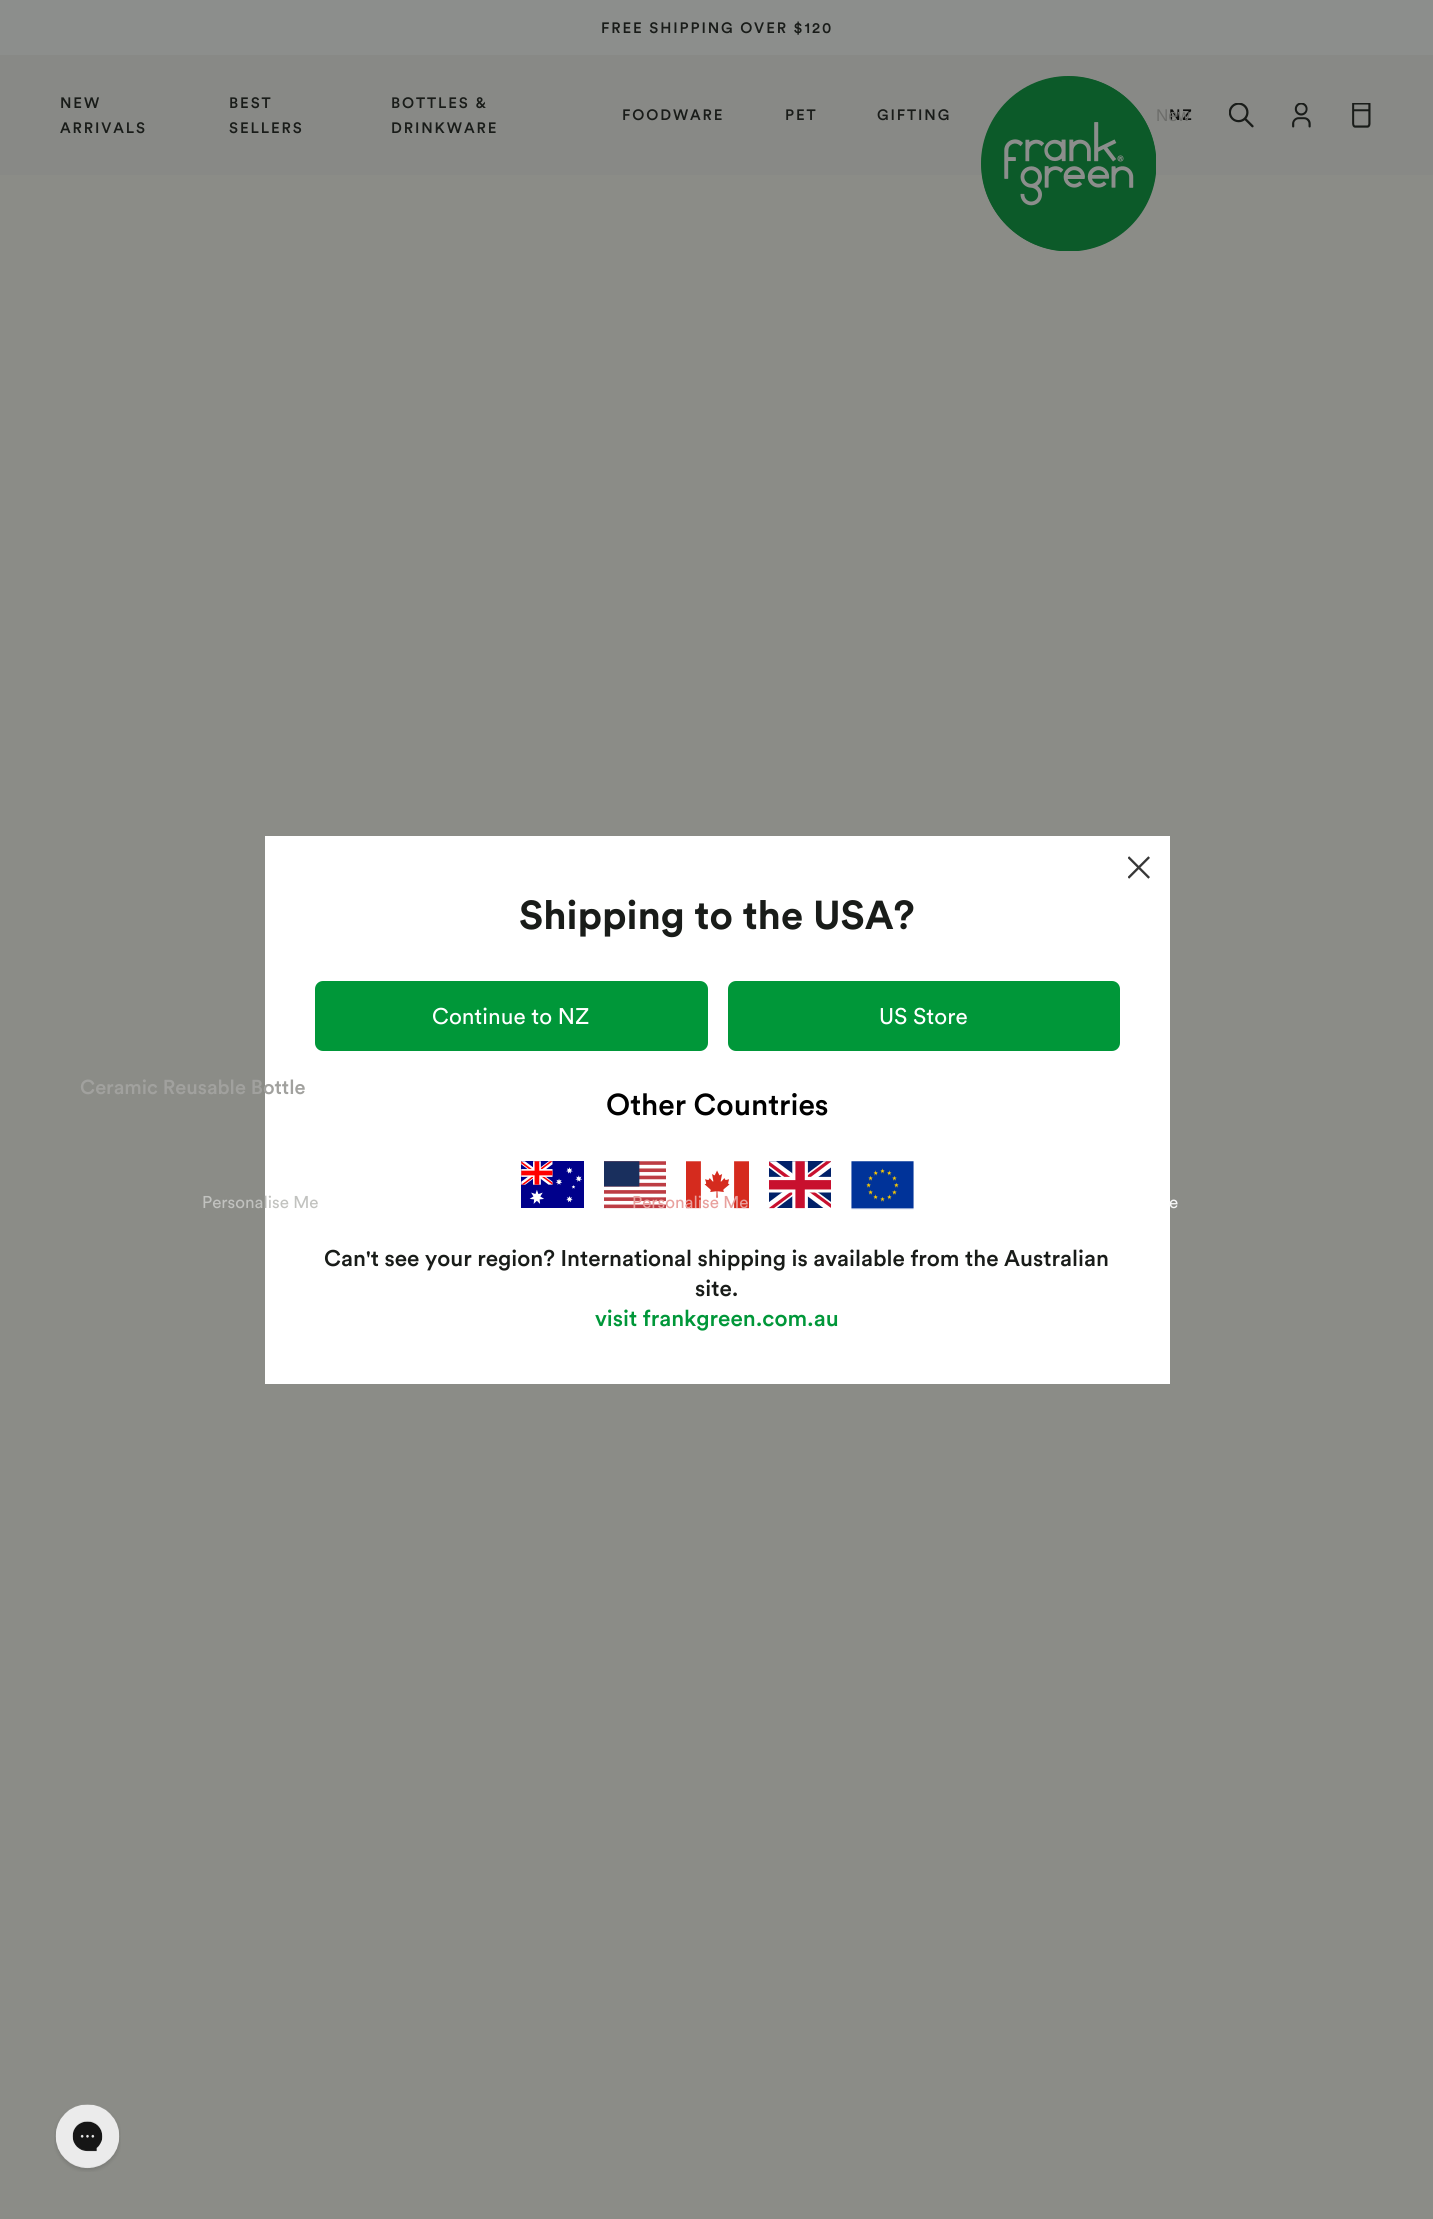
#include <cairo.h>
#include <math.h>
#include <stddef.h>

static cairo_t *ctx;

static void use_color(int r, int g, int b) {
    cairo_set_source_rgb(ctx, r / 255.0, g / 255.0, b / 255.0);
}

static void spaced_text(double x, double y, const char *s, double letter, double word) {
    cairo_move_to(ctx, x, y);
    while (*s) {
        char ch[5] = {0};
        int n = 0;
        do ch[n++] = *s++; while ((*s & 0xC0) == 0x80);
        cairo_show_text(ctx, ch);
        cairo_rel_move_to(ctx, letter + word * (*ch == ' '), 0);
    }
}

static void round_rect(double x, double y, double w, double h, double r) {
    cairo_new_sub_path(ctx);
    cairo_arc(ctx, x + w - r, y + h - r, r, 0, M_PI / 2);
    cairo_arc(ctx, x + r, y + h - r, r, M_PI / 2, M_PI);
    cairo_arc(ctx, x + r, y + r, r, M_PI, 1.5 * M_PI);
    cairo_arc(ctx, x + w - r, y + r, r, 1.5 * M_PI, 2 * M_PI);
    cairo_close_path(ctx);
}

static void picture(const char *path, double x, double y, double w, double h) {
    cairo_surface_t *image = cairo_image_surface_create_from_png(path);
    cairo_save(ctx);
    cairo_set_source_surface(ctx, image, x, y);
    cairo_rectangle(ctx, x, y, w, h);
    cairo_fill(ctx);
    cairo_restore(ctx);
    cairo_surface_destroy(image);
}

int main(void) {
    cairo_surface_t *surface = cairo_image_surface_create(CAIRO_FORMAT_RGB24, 1433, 2219);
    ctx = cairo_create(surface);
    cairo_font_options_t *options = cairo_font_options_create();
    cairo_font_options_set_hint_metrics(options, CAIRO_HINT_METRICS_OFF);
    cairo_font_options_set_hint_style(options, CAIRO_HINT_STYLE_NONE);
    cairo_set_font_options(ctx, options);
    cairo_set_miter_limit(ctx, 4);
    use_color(139, 140, 135);
    cairo_paint(ctx);
    use_color(140, 142, 140);
    cairo_rectangle(ctx, 0, 0, 1433, 55);
    cairo_fill(ctx);
    cairo_select_font_face(ctx, "Circular Medium", CAIRO_FONT_SLANT_NORMAL, CAIRO_FONT_WEIGHT_NORMAL);
    cairo_set_font_size(ctx, 15);
    use_color(25, 28, 25);
    spaced_text(601, 33, "FREE SHIPPING OVER $120", 1.9, 0);
    use_color(136, 137, 134);
    cairo_rectangle(ctx, 0, 55, 1433, 120);
    cairo_fill(ctx);
    use_color(25, 28, 25);
    spaced_text(60, 108, "NEW", 1.9, 0);
    spaced_text(60, 133, "ARRIVALS", 1.9, 0);
    spaced_text(229, 108, "BEST", 1.9, 0);
    spaced_text(229, 133, "SELLERS", 1.9, 0);
    spaced_text(391, 108, "BOTTLES &", 1.9, 0);
    spaced_text(391, 133, "DRINKWARE", 1.9, 0);
    spaced_text(622, 120, "FOODWARE", 1.9, 0);
    spaced_text(785, 120, "PET", 1.9, 0);
    spaced_text(877, 120, "GIFTING", 1.9, 0);
    use_color(13, 90, 41);
    cairo_new_path(ctx);
    cairo_arc(ctx, 1068.5, 163.5, 87.5, 0, 2 * M_PI);
    cairo_fill(ctx);
    picture("img1.png", 981, 76, 175, 175);
    use_color(13, 14, 13);
    spaced_text(1169, 120, "NZ", 1.9, 0);
    cairo_select_font_face(ctx, "Liberation Sans", CAIRO_FONT_SLANT_NORMAL, CAIRO_FONT_WEIGHT_NORMAL);
    cairo_set_font_size(ctx, 17);
    use_color(108, 109, 106);
    cairo_move_to(ctx, 1156, 121);
    cairo_show_text(ctx, "New");
    picture("img2.png", 1229, 103, 25, 25);
    picture("img3.png", 1292, 103, 19, 25);
    picture("img4.png", 1352, 103, 19, 25);
    use_color(255, 255, 255);
    cairo_rectangle(ctx, 265, 836, 905, 548);
    cairo_fill(ctx);
    picture("img5.png", 1128, 856, 22, 23);
    cairo_select_font_face(ctx, "Circular", CAIRO_FONT_SLANT_NORMAL, CAIRO_FONT_WEIGHT_BOLD);
    cairo_set_font_size(ctx, 40);
    use_color(25, 28, 25);
    cairo_move_to(ctx, 519, 929);
    cairo_show_text(ctx, "Shipping to the USA?");
    use_color(0, 151, 57);
    round_rect(315, 981, 393, 70, 8);
    cairo_fill(ctx);
    cairo_select_font_face(ctx, "Circular", CAIRO_FONT_SLANT_NORMAL, CAIRO_FONT_WEIGHT_NORMAL);
    cairo_set_font_size(ctx, 22.5);
    use_color(255, 255, 255);
    cairo_move_to(ctx, 432, 1024);
    cairo_show_text(ctx, "Continue to NZ");
    use_color(0, 151, 57);
    round_rect(728, 981, 392, 70, 8);
    cairo_fill(ctx);
    use_color(255, 255, 255);
    cairo_move_to(ctx, 879, 1024);
    cairo_show_text(ctx, "US Store");
    cairo_select_font_face(ctx, "Circular Medium", CAIRO_FONT_SLANT_NORMAL, CAIRO_FONT_WEIGHT_NORMAL);
    cairo_set_font_size(ctx, 30);
    use_color(0, 0, 0);
    cairo_move_to(ctx, 606, 1115);
    cairo_show_text(ctx, "Other Countries");
    picture("img6.png", 521, 1161, 63, 47);
    picture("img7.png", 604, 1161, 62, 48);
    picture("img8.png", 686, 1161, 63, 48);
    picture("img9.png", 769, 1161, 62, 48);
    picture("img10.png", 851, 1161, 63, 49);
    cairo_set_font_size(ctx, 22.5);
    use_color(25, 28, 25);
    cairo_move_to(ctx, 324, 1266);
    cairo_show_text(ctx, "Can't see your region? International shipping is available from the Australian");
    cairo_move_to(ctx, 695, 1296);
    cairo_show_text(ctx, "site.");
    use_color(0, 151, 57);
    cairo_move_to(ctx, 595, 1326);
    cairo_show_text(ctx, "visit frankgreen.com.au");
    cairo_set_font_size(ctx, 20);
    use_color(161, 161, 158);
    cairo_move_to(ctx, 80, 1094);
    cairo_show_text(ctx, "Ceramic Reusable Bottle");
    cairo_select_font_face(ctx, "Circular", CAIRO_FONT_SLANT_NORMAL, CAIRO_FONT_WEIGHT_NORMAL);
    cairo_set_font_size(ctx, 17);
    use_color(193, 194, 191);
    cairo_move_to(ctx, 202, 1208);
    cairo_show_text(ctx, "Personalise Me");
    use_color(232, 160, 157);
    cairo_move_to(ctx, 632, 1208);
    cairo_show_text(ctx, "Personalise Me");
    use_color(246, 246, 246);
    cairo_move_to(ctx, 1169, 1208);
    cairo_show_text(ctx, "e");
    picture("img11.png", 54, 2104, 67, 68);
    cairo_surface_write_to_png(surface, "result.png");
    cairo_font_options_destroy(options);
    cairo_destroy(ctx);
    cairo_surface_destroy(surface);
    return 0;
}
